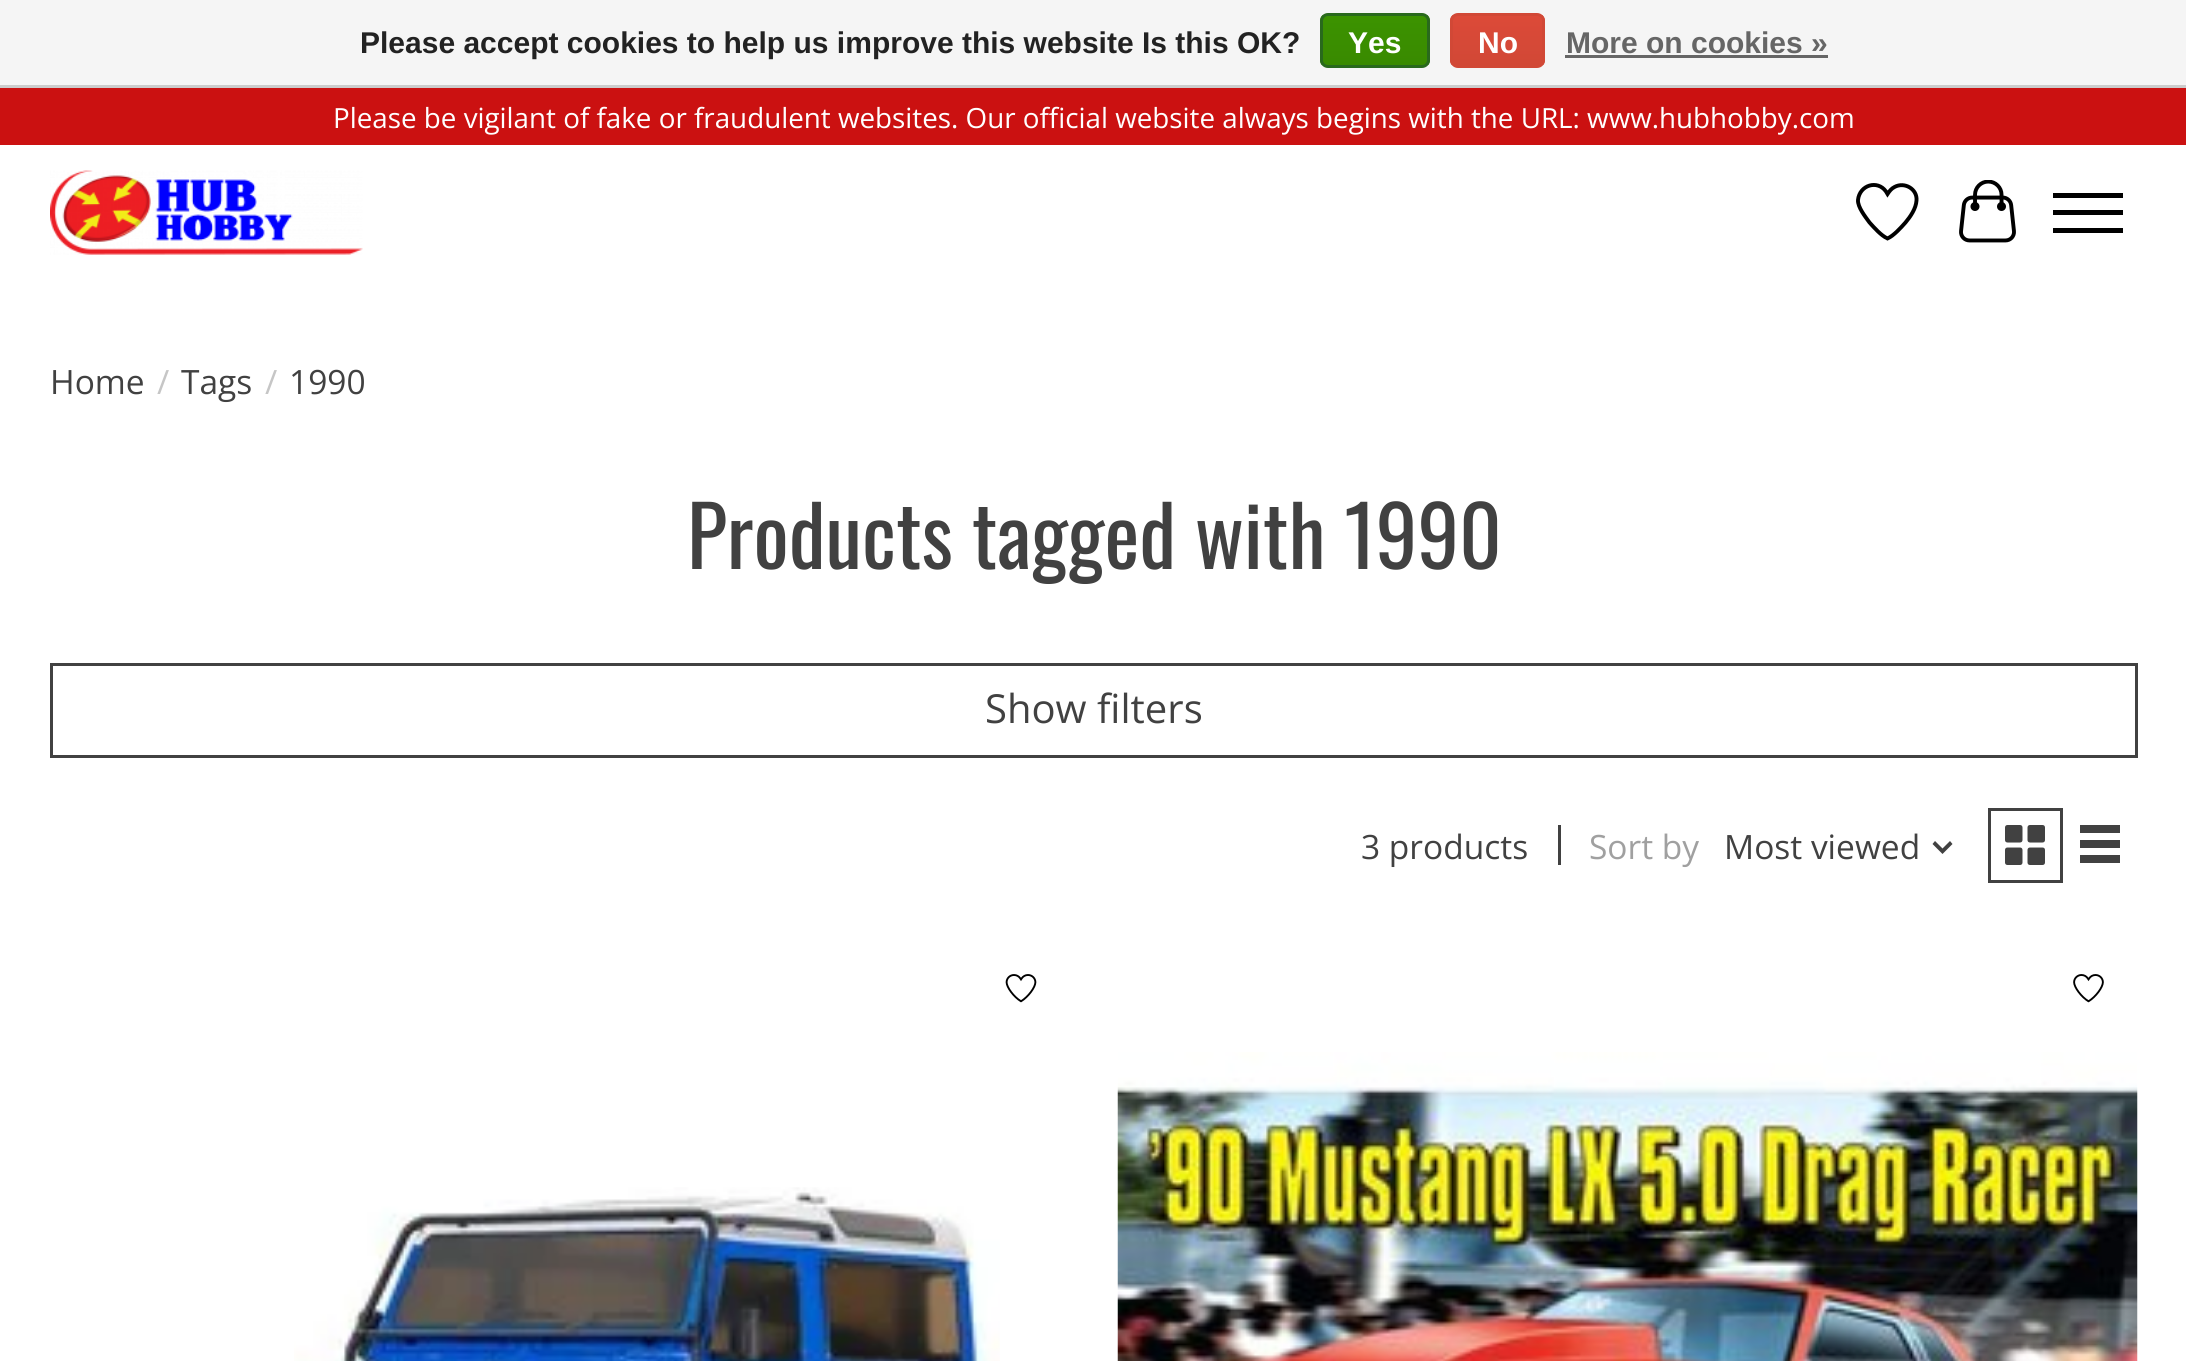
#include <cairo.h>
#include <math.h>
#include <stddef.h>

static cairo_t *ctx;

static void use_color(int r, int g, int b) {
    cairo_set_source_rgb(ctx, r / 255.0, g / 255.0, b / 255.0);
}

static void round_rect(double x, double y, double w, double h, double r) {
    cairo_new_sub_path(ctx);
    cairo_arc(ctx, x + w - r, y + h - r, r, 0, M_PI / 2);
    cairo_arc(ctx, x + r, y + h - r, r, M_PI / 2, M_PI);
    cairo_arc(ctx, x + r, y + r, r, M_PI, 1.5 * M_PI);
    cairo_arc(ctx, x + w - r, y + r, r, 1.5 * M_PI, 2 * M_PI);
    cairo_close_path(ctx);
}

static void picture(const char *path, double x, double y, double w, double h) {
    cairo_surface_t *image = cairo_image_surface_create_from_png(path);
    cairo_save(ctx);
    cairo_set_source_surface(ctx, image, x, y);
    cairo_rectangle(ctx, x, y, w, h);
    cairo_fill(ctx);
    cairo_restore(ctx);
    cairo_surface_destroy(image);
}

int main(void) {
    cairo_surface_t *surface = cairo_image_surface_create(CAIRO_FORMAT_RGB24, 2186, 1361);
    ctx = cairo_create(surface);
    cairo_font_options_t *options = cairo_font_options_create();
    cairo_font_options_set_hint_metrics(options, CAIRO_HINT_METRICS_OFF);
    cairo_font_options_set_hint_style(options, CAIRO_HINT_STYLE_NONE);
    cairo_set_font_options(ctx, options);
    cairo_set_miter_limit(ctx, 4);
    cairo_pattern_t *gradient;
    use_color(255, 255, 255);
    cairo_paint(ctx);
    use_color(245, 245, 245);
    cairo_rectangle(ctx, 0, 0, 2186, 85);
    cairo_fill(ctx);
    use_color(204, 204, 204);
    cairo_rectangle(ctx, 0, 85, 2186, 3);
    cairo_fill(ctx);
    cairo_select_font_face(ctx, "Liberation Sans", CAIRO_FONT_SLANT_NORMAL, CAIRO_FONT_WEIGHT_BOLD);
    cairo_set_font_size(ctx, 30);
    use_color(34, 34, 34);
    cairo_move_to(ctx, 360, 53);
    cairo_show_text(ctx, "Please accept cookies to help us improve this website Is this OK?");
    cairo_save(ctx);
    round_rect(1320, 13, 110, 55, 8);
    cairo_clip(ctx);
    gradient = cairo_pattern_create_linear(1375, 15, 1375, 65);
    cairo_pattern_add_color_stop_rgba(gradient, 0, 0.235, 0.576, 0, 1);
    cairo_pattern_add_color_stop_rgba(gradient, 1, 0.224, 0.541, 0, 1);
    cairo_set_source(ctx, gradient);
    cairo_pattern_destroy(gradient);
    cairo_rectangle(ctx, 1320, 15, 110, 50);
    cairo_fill(ctx);
    cairo_restore(ctx);
    round_rect(1321.5, 14.5, 107, 52, 6.5);
    use_color(41, 105, 29);
    cairo_set_line_width(ctx, 3);
    cairo_stroke(ctx);
    use_color(255, 255, 255);
    cairo_move_to(ctx, 1348, 53);
    cairo_show_text(ctx, "Yes");
    cairo_save(ctx);
    round_rect(1450, 13, 95, 55, 8);
    cairo_clip(ctx);
    gradient = cairo_pattern_create_linear(1498, 15, 1498, 65);
    cairo_pattern_add_color_stop_rgba(gradient, 0, 0.863, 0.29, 0.22, 1);
    cairo_pattern_add_color_stop_rgba(gradient, 1, 0.82, 0.282, 0.212, 1);
    cairo_set_source(ctx, gradient);
    cairo_pattern_destroy(gradient);
    cairo_rectangle(ctx, 1450, 15, 95, 50);
    cairo_fill(ctx);
    cairo_restore(ctx);
    round_rect(1451.5, 14.5, 92, 52, 6.5);
    use_color(209, 72, 54);
    cairo_stroke(ctx);
    use_color(255, 255, 255);
    cairo_move_to(ctx, 1478, 53);
    cairo_show_text(ctx, "No");
    use_color(102, 102, 102);
    cairo_move_to(ctx, 1566, 53);
    cairo_show_text(ctx, "More on cookies »");
    cairo_rectangle(ctx, 1565, 55, 263, 3);
    cairo_fill(ctx);
    use_color(203, 17, 17);
    cairo_rectangle(ctx, 0, 88, 2186, 57);
    cairo_fill(ctx);
    cairo_select_font_face(ctx, "Open Sans", CAIRO_FONT_SLANT_NORMAL, CAIRO_FONT_WEIGHT_NORMAL);
    cairo_set_font_size(ctx, 27.78);
    use_color(255, 255, 255);
    cairo_move_to(ctx, 333, 128);
    cairo_show_text(ctx, "Please be vigilant of fake or fraudulent websites. Our official website always begins with the URL: www.hubhobby.com");
    picture("img1.png", 50, 170, 313, 85);
    cairo_new_path(ctx);
    cairo_move_to(ctx, 1886, 191.5);
    cairo_line_to(ctx, 1887.5, 194);
    cairo_curve_to(ctx, 1889.5, 191, 1891.5, 188.5, 1894.5, 187);
    cairo_curve_to(ctx, 1904.5, 181.5, 1917.5, 189, 1916.5, 200.5);
    cairo_curve_to(ctx, 1916, 208.5, 1910.5, 216.5, 1905.5, 222.5);
    cairo_curve_to(ctx, 1901, 227.5, 1894, 235.5, 1887.5, 238.5);
    cairo_curve_to(ctx, 1881, 235.5, 1874, 227.5, 1869.5, 222.5);
    cairo_curve_to(ctx, 1865.5, 217, 1857.5, 207, 1858, 200);
    cairo_curve_to(ctx, 1859.5, 185, 1877.5, 179.5, 1886, 191.5);
    cairo_close_path(ctx);
    use_color(0, 0, 0);
    cairo_set_line_width(ctx, 3.9);
    cairo_stroke(ctx);
    picture("img2.png", 1959, 180, 57, 63);
    cairo_rectangle(ctx, 2053, 210, 70, 5);
    cairo_fill(ctx);
    cairo_rectangle(ctx, 2053, 193, 70, 5);
    cairo_fill(ctx);
    cairo_rectangle(ctx, 2053, 228, 70, 5);
    cairo_fill(ctx);
    cairo_set_font_size(ctx, 33.5);
    use_color(65, 65, 65);
    cairo_move_to(ctx, 50, 394);
    cairo_show_text(ctx, "Home");
    use_color(198, 198, 198);
    cairo_move_to(ctx, 157, 394);
    cairo_show_text(ctx, "/");
    use_color(65, 65, 65);
    cairo_move_to(ctx, 181, 394);
    cairo_show_text(ctx, "Tags");
    use_color(198, 198, 198);
    cairo_move_to(ctx, 265, 394);
    cairo_show_text(ctx, "/");
    use_color(65, 65, 65);
    cairo_move_to(ctx, 289, 394);
    cairo_show_text(ctx, "1990");
    cairo_select_font_face(ctx, "Oswald", CAIRO_FONT_SLANT_NORMAL, CAIRO_FONT_WEIGHT_NORMAL);
    cairo_set_font_size(ctx, 83);
    cairo_move_to(ctx, 687, 569);
    cairo_show_text(ctx, "Products tagged with 1990");
    cairo_rectangle(ctx, 51.5, 664.5, 2085, 92);
    cairo_set_line_width(ctx, 3);
    cairo_stroke(ctx);
    cairo_select_font_face(ctx, "Open Sans", CAIRO_FONT_SLANT_NORMAL, CAIRO_FONT_WEIGHT_NORMAL);
    cairo_set_font_size(ctx, 40);
    cairo_move_to(ctx, 985, 723);
    cairo_show_text(ctx, "Show filters");
    cairo_set_font_size(ctx, 33.5);
    cairo_move_to(ctx, 1361, 859);
    cairo_show_text(ctx, "3 products");
    cairo_rectangle(ctx, 1558, 825, 3, 40);
    cairo_fill(ctx);
    use_color(160, 160, 160);
    cairo_move_to(ctx, 1589, 859);
    cairo_show_text(ctx, "Sort by");
    use_color(65, 65, 65);
    cairo_move_to(ctx, 1724, 859);
    cairo_show_text(ctx, "Most viewed");
    cairo_new_path(ctx);
    cairo_move_to(ctx, 1942.5, 854);
    cairo_line_to(ctx, 1932.5, 844);
    cairo_line_to(ctx, 1935, 841);
    cairo_line_to(ctx, 1942.5, 848.5);
    cairo_line_to(ctx, 1950, 841);
    cairo_line_to(ctx, 1952.5, 844);
    cairo_close_path(ctx);
    cairo_fill(ctx);
    cairo_rectangle(ctx, 1989.5, 809.5, 72, 72);
    cairo_stroke(ctx);
    picture("img3.png", 2005, 825, 40, 40);
    cairo_rectangle(ctx, 2080, 825, 40, 8);
    cairo_fill(ctx);
    cairo_rectangle(ctx, 2080, 840, 40, 8);
    cairo_fill(ctx);
    cairo_rectangle(ctx, 2080, 855, 40, 8);
    cairo_fill(ctx);
    picture("img4.png", 1005, 974, 32, 29);
    picture("img5.png", 294, 1187, 706, 174);
    picture("img6.png", 2073, 974, 31, 29);
    picture("img7.png", 1117, 1052, 1021, 309);
    cairo_surface_write_to_png(surface, "result.png");
    cairo_font_options_destroy(options);
    cairo_destroy(ctx);
    cairo_surface_destroy(surface);
    return 0;
}
